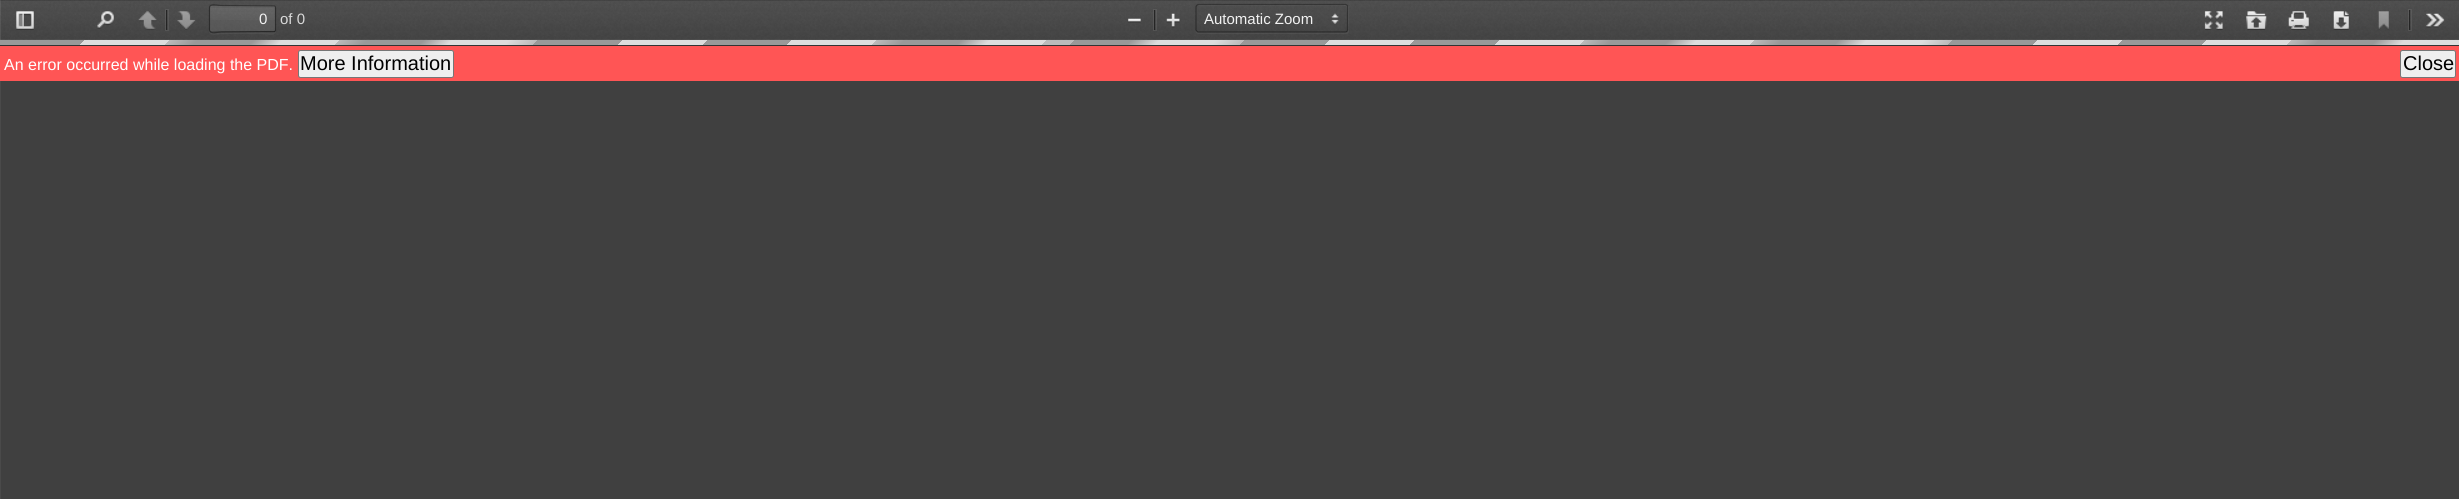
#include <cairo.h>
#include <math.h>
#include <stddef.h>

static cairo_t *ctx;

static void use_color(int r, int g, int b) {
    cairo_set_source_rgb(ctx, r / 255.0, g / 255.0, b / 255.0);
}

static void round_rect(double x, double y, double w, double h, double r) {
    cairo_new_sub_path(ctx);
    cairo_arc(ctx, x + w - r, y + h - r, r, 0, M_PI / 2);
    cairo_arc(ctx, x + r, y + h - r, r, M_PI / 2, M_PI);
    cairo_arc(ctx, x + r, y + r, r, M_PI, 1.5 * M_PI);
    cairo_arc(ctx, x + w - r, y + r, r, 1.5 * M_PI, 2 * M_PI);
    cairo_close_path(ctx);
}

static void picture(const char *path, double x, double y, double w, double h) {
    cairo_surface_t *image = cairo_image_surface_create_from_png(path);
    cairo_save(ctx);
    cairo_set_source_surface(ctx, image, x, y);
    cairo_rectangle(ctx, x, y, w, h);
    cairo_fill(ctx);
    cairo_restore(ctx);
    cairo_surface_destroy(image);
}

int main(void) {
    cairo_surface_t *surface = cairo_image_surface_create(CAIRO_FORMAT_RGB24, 2459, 499);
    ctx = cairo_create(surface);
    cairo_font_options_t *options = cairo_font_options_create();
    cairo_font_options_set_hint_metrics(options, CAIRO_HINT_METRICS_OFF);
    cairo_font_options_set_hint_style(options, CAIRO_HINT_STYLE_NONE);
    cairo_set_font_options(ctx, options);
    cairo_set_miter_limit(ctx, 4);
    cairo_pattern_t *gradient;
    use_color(64, 64, 64);
    cairo_paint(ctx);
    picture("img1.png", 0, 0, 2459, 40);
    cairo_set_source_rgba(ctx, 1, 1, 1, 0.05);
    cairo_rectangle(ctx, 0, 39, 2459, 1);
    cairo_fill(ctx);
    cairo_set_source_rgba(ctx, 0, 0, 0, 0.15);
    cairo_rectangle(ctx, 0, 0, 2459, 1);
    cairo_fill(ctx);
    cairo_set_source_rgba(ctx, 1, 1, 1, 0.08);
    cairo_rectangle(ctx, 0, 0, 1, 40);
    cairo_fill(ctx);
    picture("img2.png", 16, 11, 18, 19);
    picture("img3.png", 97, 11, 17, 18);
    picture("img4.png", 138, 11, 19, 19);
    cairo_rectangle(ctx, 165.5, 9.5, 3, 21);
    cairo_set_line_width(ctx, 1);
    cairo_stroke(ctx);
    cairo_set_source_rgba(ctx, 0, 0, 0, 0.5);
    cairo_rectangle(ctx, 166, 10, 1, 20);
    cairo_fill(ctx);
    picture("img5.png", 177, 11, 19, 19);
    cairo_set_source_rgba(ctx, 1, 1, 1, 0.05);
    cairo_new_path(ctx);
    cairo_move_to(ctx, 209, 31);
    cairo_curve_to(ctx, 209, 37, 220, 34, 222, 34);
    cairo_line_to(ctx, 263, 34);
    cairo_curve_to(ctx, 265, 34, 276, 37, 276, 31);
    cairo_curve_to(ctx, 274, 34, 265, 32, 263, 32);
    cairo_line_to(ctx, 211, 32);
    cairo_close_path(ctx);
    cairo_fill(ctx);
    cairo_set_source_rgba(ctx, 1, 1, 1, 0.09);
    cairo_rectangle(ctx, 210, 6, 65, 25);
    cairo_fill(ctx);
    gradient = cairo_pattern_create_linear(243, 6.2, 243, 31);
    cairo_pattern_add_color_stop_rgba(gradient, 0, 1, 1, 1, 0.05);
    cairo_pattern_add_color_stop_rgba(gradient, 1, 1, 1, 1, 0);
    cairo_set_source(ctx, gradient);
    cairo_pattern_destroy(gradient);
    cairo_rectangle(ctx, 210, 6, 65, 14);
    cairo_fill(ctx);
    cairo_set_source_rgba(ctx, 0, 0, 0, 0.05);
    cairo_new_path(ctx);
    cairo_move_to(ctx, 211, 8);
    cairo_line_to(ctx, 274, 8);
    cairo_line_to(ctx, 275, 9);
    cairo_curve_to(ctx, 275, 3, 271, 6, 264, 6);
    cairo_line_to(ctx, 222, 6);
    cairo_curve_to(ctx, 214, 6, 210, 3, 210, 9);
    cairo_close_path(ctx);
    cairo_fill(ctx);
    cairo_new_path(ctx);
    cairo_move_to(ctx, 210, 6);
    cairo_curve_to(ctx, 212.5, 3.5, 217.5, 5.5, 221.5, 5.5);
    cairo_line_to(ctx, 275, 6);
    cairo_set_source_rgba(ctx, 0, 0, 0, 0.32);
    cairo_set_line_width(ctx, 1.2);
    cairo_stroke(ctx);
    cairo_new_path(ctx);
    cairo_move_to(ctx, 275, 6);
    cairo_line_to(ctx, 275.5, 7.5);
    cairo_line_to(ctx, 275.5, 30);
    cairo_line_to(ctx, 275, 31.5);
    cairo_set_source_rgba(ctx, 0, 0, 0, 0.38);
    cairo_stroke(ctx);
    cairo_new_path(ctx);
    cairo_move_to(ctx, 275, 31.5);
    cairo_line_to(ctx, 221.5, 32);
    cairo_curve_to(ctx, 217.5, 32, 212.5, 34, 210, 31.5);
    cairo_set_source_rgba(ctx, 0, 0, 0, 0.42);
    cairo_stroke(ctx);
    cairo_new_path(ctx);
    cairo_move_to(ctx, 210, 31.5);
    cairo_line_to(ctx, 209.5, 30);
    cairo_line_to(ctx, 209.5, 7.5);
    cairo_line_to(ctx, 210, 6);
    cairo_set_source_rgba(ctx, 0, 0, 0, 0.38);
    cairo_stroke(ctx);
    cairo_select_font_face(ctx, "Liberation Sans", CAIRO_FONT_SLANT_NORMAL, CAIRO_FONT_WEIGHT_NORMAL);
    cairo_set_font_size(ctx, 15);
    use_color(242, 242, 242);
    cairo_move_to(ctx, 259, 24);
    cairo_show_text(ctx, "0");
    use_color(217, 217, 217);
    cairo_move_to(ctx, 280, 24);
    cairo_show_text(ctx, "of 0");
    picture("img6.png", 1128, 18, 13, 5);
    cairo_rectangle(ctx, 1153.5, 9.5, 3, 21);
    cairo_set_source_rgba(ctx, 1, 1, 1, 0.08);
    cairo_set_line_width(ctx, 1);
    cairo_stroke(ctx);
    cairo_set_source_rgba(ctx, 0, 0, 0, 0.5);
    cairo_rectangle(ctx, 1154, 10, 1, 20);
    cairo_fill(ctx);
    picture("img7.png", 1166, 13, 14, 15);
    cairo_set_source_rgba(ctx, 1, 1, 1, 0.05);
    cairo_new_path(ctx);
    cairo_move_to(ctx, 1196, 31);
    cairo_line_to(ctx, 1196, 32);
    cairo_curve_to(ctx, 1196, 33, 1197, 34, 1198, 34);
    cairo_line_to(ctx, 1346, 34);
    cairo_curve_to(ctx, 1348, 34, 1349, 33, 1349, 32);
    cairo_line_to(ctx, 1349, 8);
    cairo_curve_to(ctx, 1349, 7, 1349, 6, 1348, 6);
    cairo_line_to(ctx, 1348, 22);
    cairo_curve_to(ctx, 1348, 24, 1350, 32, 1346, 32);
    cairo_line_to(ctx, 1198, 32);
    cairo_close_path(ctx);
    cairo_fill(ctx);
    picture("img8.png", 1331, 13, 8, 11);
    cairo_new_path(ctx);
    cairo_move_to(ctx, 1198, 6);
    cairo_line_to(ctx, 1346, 6);
    cairo_curve_to(ctx, 1348, 8, 1347, 27, 1347, 31);
    cairo_curve_to(ctx, 1349, 31, 1348, 21, 1348, 6);
    cairo_line_to(ctx, 1347, 5);
    cairo_line_to(ctx, 1199, 5);
    cairo_close_path(ctx);
    cairo_fill(ctx);
    cairo_new_path(ctx);
    cairo_move_to(ctx, 1197, 5);
    cairo_line_to(ctx, 1198, 4.5);
    cairo_line_to(ctx, 1345.5, 4.5);
    cairo_line_to(ctx, 1347, 5);
    cairo_set_source_rgba(ctx, 0, 0, 0, 0.32);
    cairo_set_line_width(ctx, 1.2);
    cairo_stroke(ctx);
    cairo_new_path(ctx);
    cairo_move_to(ctx, 1347, 5);
    cairo_line_to(ctx, 1347.5, 6);
    cairo_line_to(ctx, 1347.5, 30);
    cairo_line_to(ctx, 1347, 31.5);
    cairo_set_source_rgba(ctx, 0, 0, 0, 0.38);
    cairo_stroke(ctx);
    cairo_new_path(ctx);
    cairo_move_to(ctx, 1347, 31.5);
    cairo_line_to(ctx, 1345.5, 32);
    cairo_line_to(ctx, 1198, 32);
    cairo_line_to(ctx, 1197, 31.5);
    cairo_set_source_rgba(ctx, 0, 0, 0, 0.42);
    cairo_stroke(ctx);
    cairo_new_path(ctx);
    cairo_move_to(ctx, 1197, 31.5);
    cairo_line_to(ctx, 1196, 30);
    cairo_line_to(ctx, 1196, 6.5);
    cairo_line_to(ctx, 1197, 5);
    cairo_set_source_rgba(ctx, 0, 0, 0, 0.38);
    cairo_stroke(ctx);
    use_color(242, 242, 242);
    cairo_move_to(ctx, 1204, 24);
    cairo_show_text(ctx, "Automatic Zoom");
    picture("img9.png", 2204, 11, 19, 19);
    picture("img10.png", 2246, 11, 21, 19);
    picture("img11.png", 2288, 11, 21, 19);
    picture("img12.png", 2333, 11, 16, 19);
    picture("img13.png", 2378, 11, 11, 19);
    cairo_rectangle(ctx, 2408.5, 9.5, 3, 21);
    cairo_set_source_rgba(ctx, 1, 1, 1, 0.08);
    cairo_set_line_width(ctx, 1);
    cairo_stroke(ctx);
    cairo_set_source_rgba(ctx, 0, 0, 0, 0.5);
    cairo_rectangle(ctx, 2409, 10, 1, 20);
    cairo_fill(ctx);
    picture("img14.png", 2426, 13, 19, 15);
    use_color(51, 51, 51);
    cairo_rectangle(ctx, 0, 45, 2459, 1);
    cairo_fill(ctx);
    gradient = cairo_pattern_create_linear(661, -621, 2075, 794);
    cairo_pattern_add_color_stop_rgba(gradient, 0, 0.733, 0.733, 0.733, 1);
    cairo_pattern_add_color_stop_rgba(gradient, 0, 0.6, 0.6, 0.6, 1);
    cairo_pattern_add_color_stop_rgba(gradient, 0.03, 0.6, 0.6, 0.6, 1);
    cairo_pattern_add_color_stop_rgba(gradient, 0.03, 0.867, 0.867, 0.867, 1);
    cairo_pattern_add_color_stop_rgba(gradient, 0.06, 0.867, 0.867, 0.867, 1);
    cairo_pattern_add_color_stop_rgba(gradient, 0.06, 0.733, 0.733, 0.733, 1);
    cairo_pattern_add_color_stop_rgba(gradient, 0.07, 0.6, 0.6, 0.6, 1);
    cairo_pattern_add_color_stop_rgba(gradient, 0.09, 0.6, 0.6, 0.6, 1);
    cairo_pattern_add_color_stop_rgba(gradient, 0.1, 0.867, 0.867, 0.867, 1);
    cairo_pattern_add_color_stop_rgba(gradient, 0.12, 0.867, 0.867, 0.867, 1);
    cairo_pattern_add_color_stop_rgba(gradient, 0.12, 0.733, 0.733, 0.733, 1);
    cairo_pattern_add_color_stop_rgba(gradient, 0.13, 0.6, 0.6, 0.6, 1);
    cairo_pattern_add_color_stop_rgba(gradient, 0.15, 0.6, 0.6, 0.6, 1);
    cairo_pattern_add_color_stop_rgba(gradient, 0.16, 0.867, 0.867, 0.867, 1);
    cairo_pattern_add_color_stop_rgba(gradient, 0.18, 0.867, 0.867, 0.867, 1);
    cairo_pattern_add_color_stop_rgba(gradient, 0.19, 0.733, 0.733, 0.733, 1);
    cairo_pattern_add_color_stop_rgba(gradient, 0.19, 0.6, 0.6, 0.6, 1);
    cairo_pattern_add_color_stop_rgba(gradient, 0.22, 0.6, 0.6, 0.6, 1);
    cairo_pattern_add_color_stop_rgba(gradient, 0.22, 0.867, 0.867, 0.867, 1);
    cairo_pattern_add_color_stop_rgba(gradient, 0.25, 0.867, 0.867, 0.867, 1);
    cairo_pattern_add_color_stop_rgba(gradient, 0.25, 0.733, 0.733, 0.733, 1);
    cairo_pattern_add_color_stop_rgba(gradient, 0.25, 0.6, 0.6, 0.6, 1);
    cairo_pattern_add_color_stop_rgba(gradient, 0.28, 0.6, 0.6, 0.6, 1);
    cairo_pattern_add_color_stop_rgba(gradient, 0.28, 0.867, 0.867, 0.867, 1);
    cairo_pattern_add_color_stop_rgba(gradient, 0.31, 0.867, 0.867, 0.867, 1);
    cairo_pattern_add_color_stop_rgba(gradient, 0.31, 0.733, 0.733, 0.733, 1);
    cairo_pattern_add_color_stop_rgba(gradient, 0.32, 0.6, 0.6, 0.6, 1);
    cairo_pattern_add_color_stop_rgba(gradient, 0.34, 0.6, 0.6, 0.6, 1);
    cairo_pattern_add_color_stop_rgba(gradient, 0.35, 0.867, 0.867, 0.867, 1);
    cairo_pattern_add_color_stop_rgba(gradient, 0.37, 0.867, 0.867, 0.867, 1);
    cairo_pattern_add_color_stop_rgba(gradient, 0.37, 0.733, 0.733, 0.733, 1);
    cairo_pattern_add_color_stop_rgba(gradient, 0.38, 0.733, 0.733, 0.733, 1);
    cairo_pattern_add_color_stop_rgba(gradient, 0.38, 0.6, 0.6, 0.6, 1);
    cairo_pattern_add_color_stop_rgba(gradient, 0.4, 0.6, 0.6, 0.6, 1);
    cairo_pattern_add_color_stop_rgba(gradient, 0.41, 0.867, 0.867, 0.867, 1);
    cairo_pattern_add_color_stop_rgba(gradient, 0.43, 0.867, 0.867, 0.867, 1);
    cairo_pattern_add_color_stop_rgba(gradient, 0.44, 0.733, 0.733, 0.733, 1);
    cairo_pattern_add_color_stop_rgba(gradient, 0.44, 0.6, 0.6, 0.6, 1);
    cairo_pattern_add_color_stop_rgba(gradient, 0.47, 0.6, 0.6, 0.6, 1);
    cairo_pattern_add_color_stop_rgba(gradient, 0.47, 0.867, 0.867, 0.867, 1);
    cairo_pattern_add_color_stop_rgba(gradient, 0.5, 0.867, 0.867, 0.867, 1);
    cairo_pattern_add_color_stop_rgba(gradient, 0.5, 0.733, 0.733, 0.733, 1);
    cairo_pattern_add_color_stop_rgba(gradient, 0.5, 0.6, 0.6, 0.6, 1);
    cairo_pattern_add_color_stop_rgba(gradient, 0.53, 0.6, 0.6, 0.6, 1);
    cairo_pattern_add_color_stop_rgba(gradient, 0.53, 0.867, 0.867, 0.867, 1);
    cairo_pattern_add_color_stop_rgba(gradient, 0.56, 0.867, 0.867, 0.867, 1);
    cairo_pattern_add_color_stop_rgba(gradient, 0.56, 0.733, 0.733, 0.733, 1);
    cairo_pattern_add_color_stop_rgba(gradient, 0.57, 0.6, 0.6, 0.6, 1);
    cairo_pattern_add_color_stop_rgba(gradient, 0.59, 0.6, 0.6, 0.6, 1);
    cairo_pattern_add_color_stop_rgba(gradient, 0.6, 0.867, 0.867, 0.867, 1);
    cairo_pattern_add_color_stop_rgba(gradient, 0.62, 0.867, 0.867, 0.867, 1);
    cairo_pattern_add_color_stop_rgba(gradient, 0.62, 0.733, 0.733, 0.733, 1);
    cairo_pattern_add_color_stop_rgba(gradient, 0.63, 0.6, 0.6, 0.6, 1);
    cairo_pattern_add_color_stop_rgba(gradient, 0.65, 0.6, 0.6, 0.6, 1);
    cairo_pattern_add_color_stop_rgba(gradient, 0.66, 0.867, 0.867, 0.867, 1);
    cairo_pattern_add_color_stop_rgba(gradient, 0.68, 0.867, 0.867, 0.867, 1);
    cairo_pattern_add_color_stop_rgba(gradient, 0.69, 0.733, 0.733, 0.733, 1);
    cairo_pattern_add_color_stop_rgba(gradient, 0.69, 0.733, 0.733, 0.733, 1);
    cairo_pattern_add_color_stop_rgba(gradient, 0.69, 0.6, 0.6, 0.6, 1);
    cairo_pattern_add_color_stop_rgba(gradient, 0.72, 0.6, 0.6, 0.6, 1);
    cairo_pattern_add_color_stop_rgba(gradient, 0.72, 0.867, 0.867, 0.867, 1);
    cairo_pattern_add_color_stop_rgba(gradient, 0.75, 0.867, 0.867, 0.867, 1);
    cairo_pattern_add_color_stop_rgba(gradient, 0.75, 0.733, 0.733, 0.733, 1);
    cairo_pattern_add_color_stop_rgba(gradient, 0.75, 0.6, 0.6, 0.6, 1);
    cairo_pattern_add_color_stop_rgba(gradient, 0.78, 0.6, 0.6, 0.6, 1);
    cairo_pattern_add_color_stop_rgba(gradient, 0.78, 0.867, 0.867, 0.867, 1);
    cairo_pattern_add_color_stop_rgba(gradient, 0.81, 0.867, 0.867, 0.867, 1);
    cairo_pattern_add_color_stop_rgba(gradient, 0.81, 0.733, 0.733, 0.733, 1);
    cairo_pattern_add_color_stop_rgba(gradient, 0.82, 0.6, 0.6, 0.6, 1);
    cairo_pattern_add_color_stop_rgba(gradient, 0.84, 0.6, 0.6, 0.6, 1);
    cairo_pattern_add_color_stop_rgba(gradient, 0.85, 0.867, 0.867, 0.867, 1);
    cairo_pattern_add_color_stop_rgba(gradient, 0.87, 0.867, 0.867, 0.867, 1);
    cairo_pattern_add_color_stop_rgba(gradient, 0.88, 0.733, 0.733, 0.733, 1);
    cairo_pattern_add_color_stop_rgba(gradient, 0.88, 0.6, 0.6, 0.6, 1);
    cairo_pattern_add_color_stop_rgba(gradient, 0.9, 0.6, 0.6, 0.6, 1);
    cairo_pattern_add_color_stop_rgba(gradient, 0.91, 0.867, 0.867, 0.867, 1);
    cairo_pattern_add_color_stop_rgba(gradient, 0.93, 0.867, 0.867, 0.867, 1);
    cairo_pattern_add_color_stop_rgba(gradient, 0.94, 0.733, 0.733, 0.733, 1);
    cairo_pattern_add_color_stop_rgba(gradient, 0.94, 0.6, 0.6, 0.6, 1);
    cairo_pattern_add_color_stop_rgba(gradient, 0.97, 0.6, 0.6, 0.6, 1);
    cairo_pattern_add_color_stop_rgba(gradient, 0.97, 0.867, 0.867, 0.867, 1);
    cairo_pattern_add_color_stop_rgba(gradient, 1, 0.867, 0.867, 0.867, 1);
    cairo_pattern_add_color_stop_rgba(gradient, 1, 0.733, 0.733, 0.733, 1);
    cairo_set_source(ctx, gradient);
    cairo_pattern_destroy(gradient);
    cairo_rectangle(ctx, 0, 40, 2459, 5);
    cairo_fill(ctx);
    use_color(255, 85, 85);
    cairo_rectangle(ctx, 0, 46, 2459, 35);
    cairo_fill(ctx);
    cairo_set_font_size(ctx, 16);
    use_color(255, 255, 255);
    cairo_move_to(ctx, 4, 70);
    cairo_show_text(ctx, "An error occurred while loading the PDF.");
    use_color(239, 239, 239);
    round_rect(298.5, 50.5, 155, 27, 2);
    cairo_fill_preserve(ctx);
    use_color(118, 118, 118);
    cairo_stroke(ctx);
    cairo_set_font_size(ctx, 20);
    use_color(0, 0, 0);
    cairo_move_to(ctx, 300, 70);
    cairo_show_text(ctx, "More Information");
    use_color(239, 239, 239);
    round_rect(2400.5, 50.5, 55, 27, 2);
    cairo_fill_preserve(ctx);
    use_color(118, 118, 118);
    cairo_stroke(ctx);
    use_color(0, 0, 0);
    cairo_move_to(ctx, 2403, 70);
    cairo_show_text(ctx, "Close");
    use_color(74, 74, 74);
    cairo_rectangle(ctx, 0, 81, 1, 418);
    cairo_fill(ctx);
    cairo_surface_write_to_png(surface, "result.png");
    cairo_font_options_destroy(options);
    cairo_destroy(ctx);
    cairo_surface_destroy(surface);
    return 0;
}
